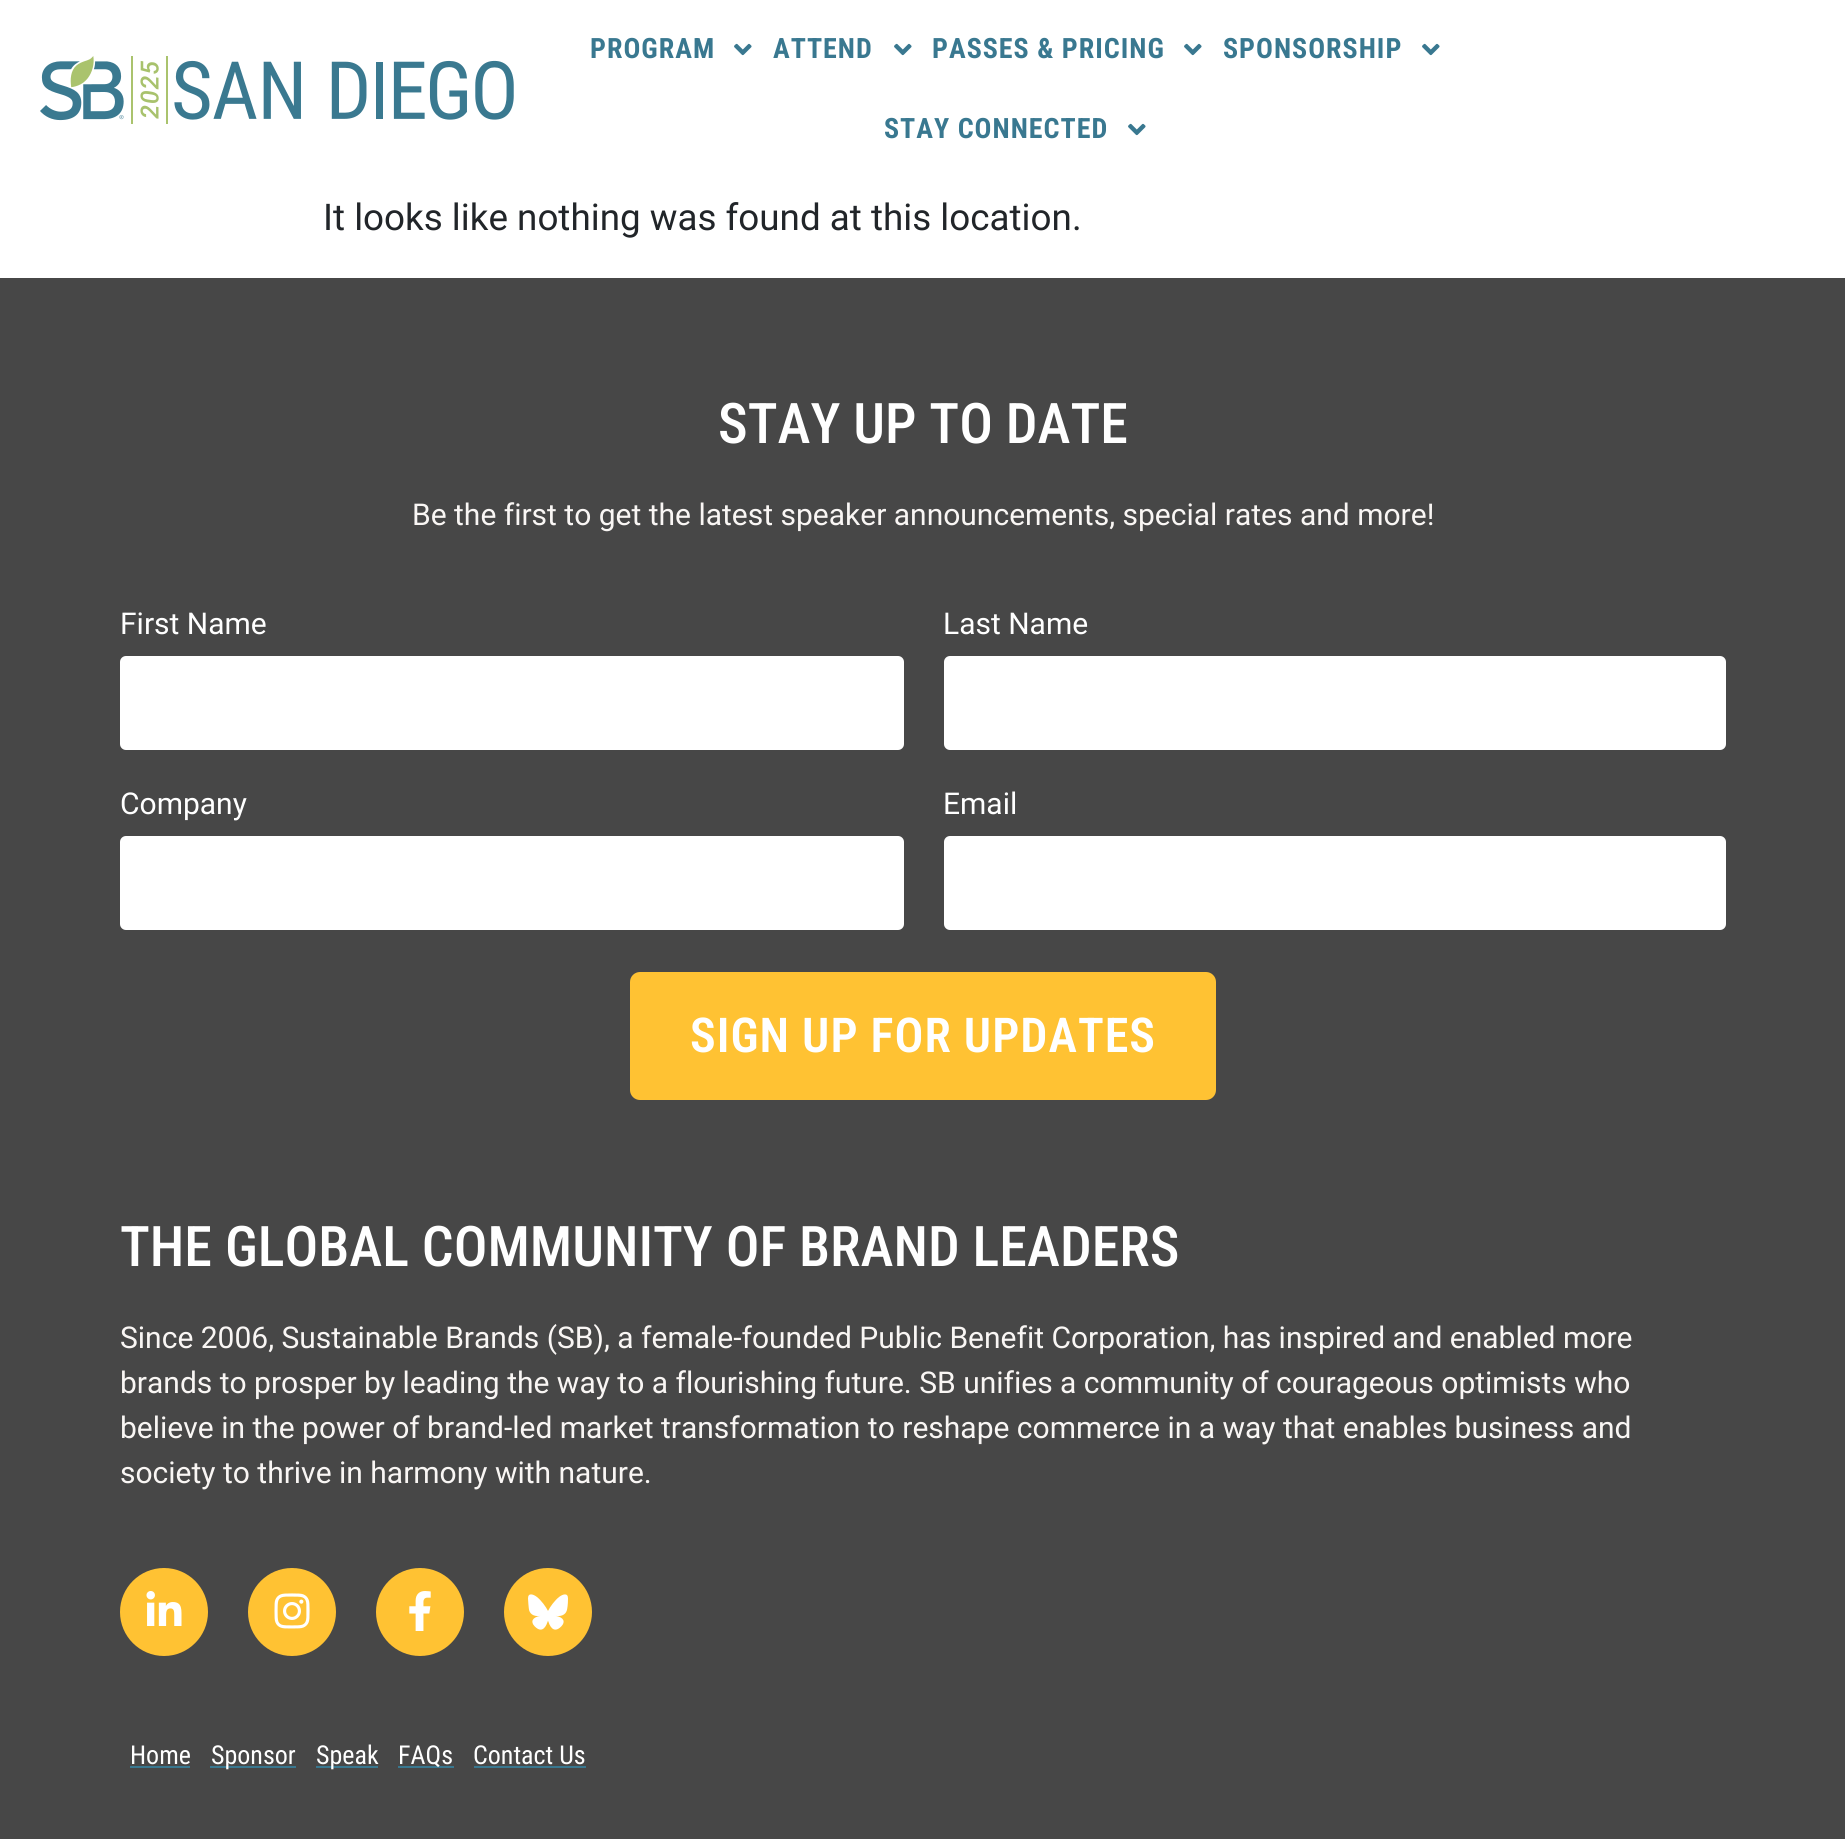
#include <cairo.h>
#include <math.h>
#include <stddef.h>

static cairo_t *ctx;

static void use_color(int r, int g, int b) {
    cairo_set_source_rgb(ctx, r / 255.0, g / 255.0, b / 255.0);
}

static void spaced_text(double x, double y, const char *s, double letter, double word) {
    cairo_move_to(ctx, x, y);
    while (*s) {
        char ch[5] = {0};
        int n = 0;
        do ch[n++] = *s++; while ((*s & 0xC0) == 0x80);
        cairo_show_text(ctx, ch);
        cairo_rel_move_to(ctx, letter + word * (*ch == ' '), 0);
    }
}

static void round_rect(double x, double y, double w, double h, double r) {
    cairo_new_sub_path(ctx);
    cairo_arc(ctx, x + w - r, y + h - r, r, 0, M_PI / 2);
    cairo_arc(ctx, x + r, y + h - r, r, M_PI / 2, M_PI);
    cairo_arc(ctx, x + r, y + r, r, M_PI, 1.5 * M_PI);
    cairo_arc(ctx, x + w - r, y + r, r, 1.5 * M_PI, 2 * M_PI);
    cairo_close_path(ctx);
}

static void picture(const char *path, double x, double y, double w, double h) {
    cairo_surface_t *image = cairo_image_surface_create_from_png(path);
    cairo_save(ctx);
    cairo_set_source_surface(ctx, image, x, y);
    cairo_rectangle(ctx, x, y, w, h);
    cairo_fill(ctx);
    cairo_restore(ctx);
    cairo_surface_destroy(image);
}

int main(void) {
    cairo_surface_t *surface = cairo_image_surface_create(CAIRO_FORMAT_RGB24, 1845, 1839);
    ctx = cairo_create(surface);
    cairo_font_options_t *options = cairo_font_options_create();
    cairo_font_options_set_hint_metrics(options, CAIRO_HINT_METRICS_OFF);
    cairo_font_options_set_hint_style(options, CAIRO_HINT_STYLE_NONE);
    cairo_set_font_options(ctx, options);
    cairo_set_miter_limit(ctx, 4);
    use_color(255, 255, 255);
    cairo_paint(ctx);
    picture("img1.png", 40, 56, 474, 68);
    cairo_select_font_face(ctx, "Roboto Condensed", CAIRO_FONT_SLANT_NORMAL, CAIRO_FONT_WEIGHT_BOLD);
    cairo_set_font_size(ctx, 28);
    use_color(57, 120, 144);
    spaced_text(590, 58, "PROGRAM", 1, 0);
    picture("img2.png", 734, 43, 18, 13);
    spaced_text(773, 58, "ATTEND", 1, 0);
    picture("img2.png", 894, 43, 18, 13);
    spaced_text(932, 58, "PASSES & PRICING", 1, 0);
    picture("img2.png", 1184, 43, 18, 13);
    spaced_text(1223, 58, "SPONSORSHIP", 1, 0);
    picture("img2.png", 1422, 43, 18, 13);
    spaced_text(884, 138, "STAY CONNECTED", 1, 0);
    picture("img2.png", 1128, 123, 18, 13);
    cairo_select_font_face(ctx, "Roboto", CAIRO_FONT_SLANT_NORMAL, CAIRO_FONT_WEIGHT_NORMAL);
    cairo_set_font_size(ctx, 36.8);
    use_color(33, 37, 41);
    cairo_move_to(ctx, 323, 230);
    cairo_show_text(ctx, "It looks like nothing was found at this location.");
    use_color(71, 71, 71);
    cairo_rectangle(ctx, 0, 278, 1845, 1561);
    cairo_fill(ctx);
    cairo_select_font_face(ctx, "Roboto Condensed Medium", CAIRO_FONT_SLANT_NORMAL, CAIRO_FONT_WEIGHT_NORMAL);
    cairo_set_font_size(ctx, 56);
    use_color(255, 255, 255);
    cairo_move_to(ctx, 718, 443);
    cairo_show_text(ctx, "STAY UP TO DATE");
    cairo_select_font_face(ctx, "Roboto", CAIRO_FONT_SLANT_NORMAL, CAIRO_FONT_WEIGHT_NORMAL);
    cairo_set_font_size(ctx, 30);
    use_color(249, 246, 244);
    cairo_move_to(ctx, 412, 525);
    cairo_show_text(ctx, "Be the first to get the latest speaker announcements, special rates and more!");
    use_color(255, 255, 255);
    cairo_move_to(ctx, 120, 634);
    cairo_show_text(ctx, "First Name");
    round_rect(120, 656, 784, 94, 6);
    cairo_fill(ctx);
    cairo_move_to(ctx, 943, 634);
    cairo_show_text(ctx, "Last Name");
    round_rect(944, 656, 782, 94, 6);
    cairo_fill(ctx);
    cairo_move_to(ctx, 120, 814);
    cairo_show_text(ctx, "Company");
    round_rect(120, 836, 784, 94, 6);
    cairo_fill(ctx);
    cairo_move_to(ctx, 943, 814);
    cairo_show_text(ctx, "Email");
    round_rect(944, 836, 782, 94, 6);
    cairo_fill(ctx);
    use_color(255, 194, 51);
    round_rect(630, 972, 586, 128, 10);
    cairo_fill(ctx);
    cairo_select_font_face(ctx, "Roboto Condensed SemiBold", CAIRO_FONT_SLANT_NORMAL, CAIRO_FONT_WEIGHT_NORMAL);
    cairo_set_font_size(ctx, 48);
    use_color(255, 255, 255);
    spaced_text(690, 1052, "SIGN UP FOR UPDATES", 1, 0);
    cairo_select_font_face(ctx, "Roboto Condensed Medium", CAIRO_FONT_SLANT_NORMAL, CAIRO_FONT_WEIGHT_NORMAL);
    cairo_set_font_size(ctx, 56);
    cairo_move_to(ctx, 120, 1266);
    cairo_show_text(ctx, "THE GLOBAL COMMUNITY OF BRAND LEADERS");
    cairo_select_font_face(ctx, "Roboto", CAIRO_FONT_SLANT_NORMAL, CAIRO_FONT_WEIGHT_NORMAL);
    cairo_set_font_size(ctx, 30);
    use_color(249, 246, 244);
    cairo_move_to(ctx, 120, 1348);
    cairo_show_text(ctx, "Since 2006, Sustainable Brands (SB), a female-founded Public Benefit Corporation, has inspired and enabled more");
    cairo_move_to(ctx, 120, 1393);
    cairo_show_text(ctx, "brands to prosper by leading the way to a flourishing future. SB unifies a community of courageous optimists who");
    cairo_move_to(ctx, 120, 1438);
    cairo_show_text(ctx, "believe in the power of brand-led market transformation to reshape commerce in a way that enables business and");
    cairo_move_to(ctx, 120, 1483);
    cairo_show_text(ctx, "society to thrive in harmony with nature.");
    use_color(255, 194, 51);
    cairo_new_path(ctx);
    cairo_arc(ctx, 164, 1612, 44, 0, 2 * M_PI);
    cairo_fill(ctx);
    picture("img3.png", 146, 1591, 36, 35);
    cairo_arc(ctx, 292, 1612, 44, 0, 2 * M_PI);
    cairo_fill(ctx);
    picture("img4.png", 274, 1593, 36, 36);
    cairo_arc(ctx, 420, 1612, 44, 0, 2 * M_PI);
    cairo_fill(ctx);
    picture("img5.png", 409, 1591, 22, 40);
    cairo_arc(ctx, 548, 1612, 44, 0, 2 * M_PI);
    cairo_fill(ctx);
    picture("img6.png", 528, 1594, 40, 36);
    cairo_select_font_face(ctx, "Roboto Condensed", CAIRO_FONT_SLANT_NORMAL, CAIRO_FONT_WEIGHT_NORMAL);
    cairo_set_font_size(ctx, 26);
    use_color(255, 255, 255);
    cairo_move_to(ctx, 130, 1764);
    cairo_show_text(ctx, "Home");
    use_color(57, 120, 144);
    cairo_rectangle(ctx, 130, 1766, 60, 2);
    cairo_fill(ctx);
    cairo_rectangle(ctx, 210, 1766, 86, 2);
    cairo_fill(ctx);
    use_color(255, 255, 255);
    cairo_move_to(ctx, 211, 1764);
    cairo_show_text(ctx, "Sponsor");
    use_color(57, 120, 144);
    cairo_rectangle(ctx, 316, 1766, 62, 2);
    cairo_fill(ctx);
    use_color(255, 255, 255);
    cairo_move_to(ctx, 316, 1764);
    cairo_show_text(ctx, "Speak");
    use_color(57, 120, 144);
    cairo_rectangle(ctx, 398, 1766, 56, 2);
    cairo_fill(ctx);
    use_color(255, 255, 255);
    cairo_move_to(ctx, 398, 1764);
    cairo_show_text(ctx, "FAQs");
    cairo_move_to(ctx, 473, 1764);
    cairo_show_text(ctx, "Contact Us");
    use_color(57, 120, 144);
    cairo_rectangle(ctx, 474, 1766, 112, 2);
    cairo_fill(ctx);
    cairo_surface_write_to_png(surface, "result.png");
    cairo_font_options_destroy(options);
    cairo_destroy(ctx);
    cairo_surface_destroy(surface);
    return 0;
}
